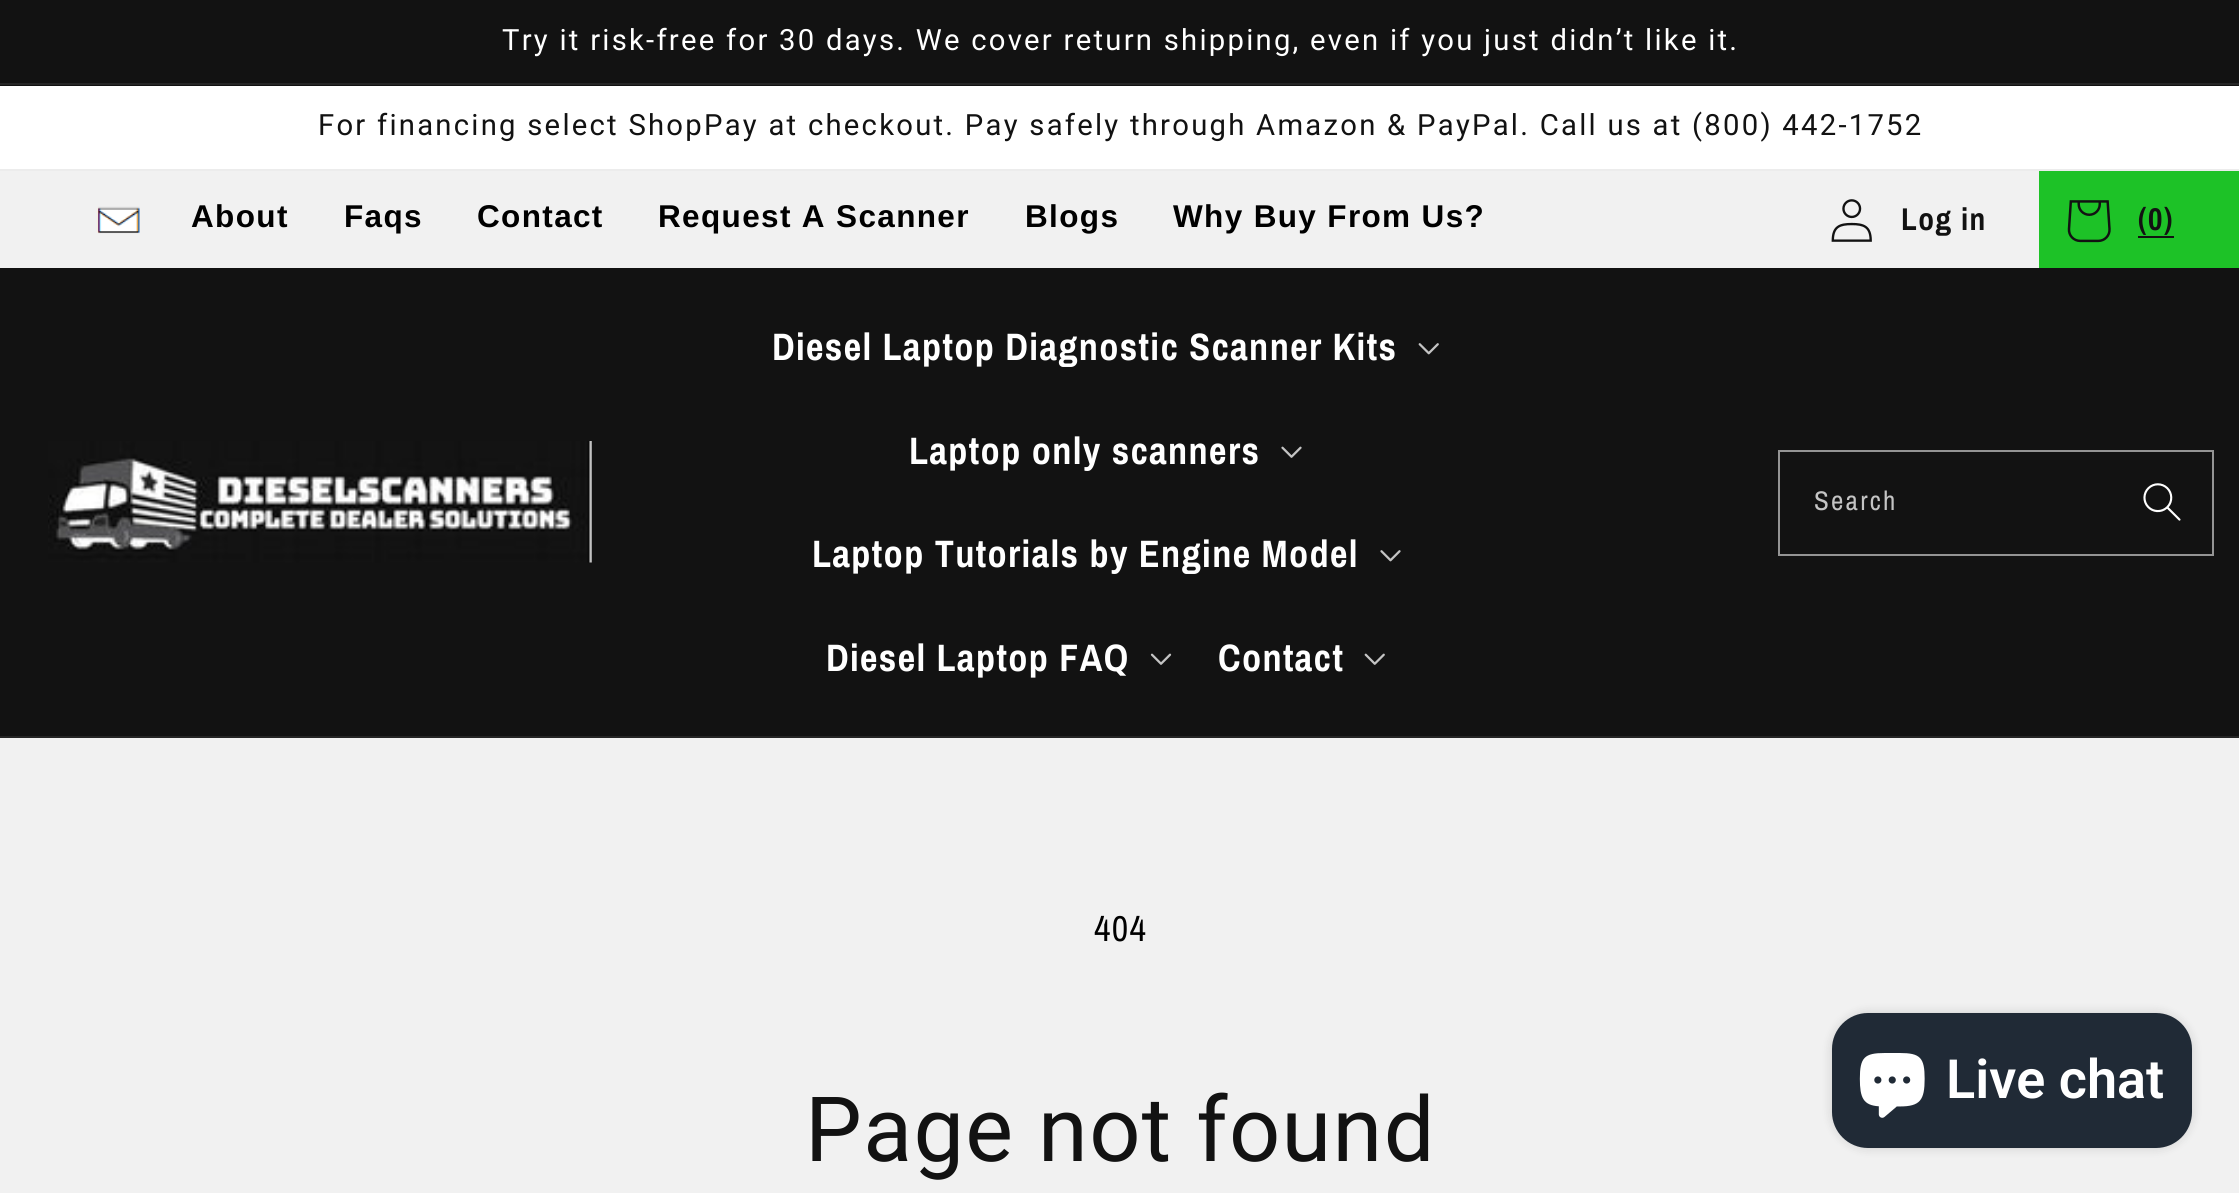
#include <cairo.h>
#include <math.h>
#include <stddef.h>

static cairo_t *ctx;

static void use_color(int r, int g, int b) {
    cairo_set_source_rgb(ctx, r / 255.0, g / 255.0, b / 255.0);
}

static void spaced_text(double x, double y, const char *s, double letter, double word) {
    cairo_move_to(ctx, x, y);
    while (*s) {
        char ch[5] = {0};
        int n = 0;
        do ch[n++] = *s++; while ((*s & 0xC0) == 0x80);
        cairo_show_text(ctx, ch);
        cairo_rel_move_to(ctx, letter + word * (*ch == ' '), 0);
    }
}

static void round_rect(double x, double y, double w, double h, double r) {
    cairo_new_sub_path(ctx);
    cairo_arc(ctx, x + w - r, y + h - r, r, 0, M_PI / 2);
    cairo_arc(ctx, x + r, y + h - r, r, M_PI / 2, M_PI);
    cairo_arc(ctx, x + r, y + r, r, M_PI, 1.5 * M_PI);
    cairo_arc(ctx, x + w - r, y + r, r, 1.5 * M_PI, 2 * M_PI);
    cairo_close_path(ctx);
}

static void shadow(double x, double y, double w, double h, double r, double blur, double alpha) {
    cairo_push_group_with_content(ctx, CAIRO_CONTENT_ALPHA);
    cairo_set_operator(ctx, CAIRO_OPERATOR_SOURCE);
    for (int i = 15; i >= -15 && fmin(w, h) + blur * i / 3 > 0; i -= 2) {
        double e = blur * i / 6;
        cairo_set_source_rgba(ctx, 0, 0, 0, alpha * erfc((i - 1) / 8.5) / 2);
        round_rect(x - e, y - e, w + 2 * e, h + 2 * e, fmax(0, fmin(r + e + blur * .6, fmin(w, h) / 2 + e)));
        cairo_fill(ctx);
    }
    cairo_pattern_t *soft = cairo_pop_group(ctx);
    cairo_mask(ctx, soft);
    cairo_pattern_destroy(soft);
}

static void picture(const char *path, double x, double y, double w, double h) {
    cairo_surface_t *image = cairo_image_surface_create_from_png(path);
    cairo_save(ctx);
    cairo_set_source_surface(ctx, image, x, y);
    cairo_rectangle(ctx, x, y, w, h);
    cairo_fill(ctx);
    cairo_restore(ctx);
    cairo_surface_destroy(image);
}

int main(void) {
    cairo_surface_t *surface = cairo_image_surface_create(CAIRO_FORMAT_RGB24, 2239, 1193);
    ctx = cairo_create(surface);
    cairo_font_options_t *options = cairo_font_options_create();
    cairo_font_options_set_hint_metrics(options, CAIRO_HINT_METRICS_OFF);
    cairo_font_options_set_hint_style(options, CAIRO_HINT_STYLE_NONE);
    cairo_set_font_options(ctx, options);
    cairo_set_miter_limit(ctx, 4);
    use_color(241, 241, 241);
    cairo_paint(ctx);
    use_color(18, 18, 18);
    cairo_rectangle(ctx, 0, 0, 2239, 86);
    cairo_fill(ctx);
    use_color(37, 37, 37);
    cairo_rectangle(ctx, 0, 83, 2239, 2);
    cairo_fill(ctx);
    cairo_select_font_face(ctx, "Roboto", CAIRO_FONT_SLANT_NORMAL, CAIRO_FONT_WEIGHT_NORMAL);
    cairo_set_font_size(ctx, 29.25);
    use_color(255, 255, 255);
    spaced_text(502, 50, "Try it risk-free for 30 days. We cover return shipping, even if you just didn’t like it.", 2.25, 0);
    cairo_rectangle(ctx, 0, 86, 2239, 83);
    cairo_fill(ctx);
    use_color(236, 236, 236);
    cairo_rectangle(ctx, 0, 169, 2239, 2);
    cairo_fill(ctx);
    use_color(18, 18, 18);
    spaced_text(318, 135, "For financing select ShopPay at checkout. Pay safely through Amazon & PayPal. Call us at (800) 442-1752", 2.25, 0);
    picture("img1.png", 96, 206, 44, 28);
    cairo_select_font_face(ctx, "Liberation Sans", CAIRO_FONT_SLANT_NORMAL, CAIRO_FONT_WEIGHT_BOLD);
    cairo_set_font_size(ctx, 31.5);
    use_color(0, 0, 0);
    spaced_text(191, 227, "About", 1.35, 0);
    spaced_text(344, 227, "Faqs", 1.35, 0);
    spaced_text(477, 227, "Contact", 1.35, 0);
    spaced_text(658, 227, "Request A Scanner", 1.35, 0);
    spaced_text(1025, 227, "Blogs", 1.35, 0);
    spaced_text(1173, 227, "Why Buy From Us?", 1.35, 0);
    picture("img2.png", 1831, 199, 41, 43);
    cairo_select_font_face(ctx, "Archivo Narrow", CAIRO_FONT_SLANT_NORMAL, CAIRO_FONT_WEIGHT_BOLD);
    use_color(18, 18, 18);
    spaced_text(1901, 230, "Log in", 1.35, 0);
    use_color(29, 194, 39);
    cairo_rectangle(ctx, 2039, 171, 200, 97);
    cairo_fill(ctx);
    picture("img3.png", 2067, 200, 44, 43);
    use_color(18, 18, 18);
    spaced_text(2138, 230, "(0)", 1.35, 0);
    cairo_rectangle(ctx, 2138, 236, 36, 2);
    cairo_fill(ctx);
    cairo_rectangle(ctx, 0, 268, 2239, 468);
    cairo_fill(ctx);
    use_color(37, 37, 37);
    cairo_rectangle(ctx, 0, 736, 2239, 2);
    cairo_fill(ctx);
    picture("img4.png", 48, 441, 544, 122);
    cairo_set_font_size(ctx, 38.25);
    use_color(255, 255, 255);
    spaced_text(772, 360, "Diesel Laptop Diagnostic Scanner Kits", 1.35, 0);
    picture("img5.png", 1418, 343, 21, 12);
    spaced_text(909, 464, "Laptop only scanners", 1.35, 0);
    picture("img6.png", 1281, 446, 21, 12);
    spaced_text(812, 567, "Laptop Tutorials by Engine Model", 1.35, 0);
    picture("img7.png", 1380, 550, 21, 12);
    spaced_text(826, 671, "Diesel Laptop FAQ", 1.35, 0);
    picture("img8.png", 1150, 653, 22, 12);
    spaced_text(1218, 671, "Contact", 1.35, 0);
    picture("img9.png", 1364, 653, 21, 12);
    cairo_rectangle(ctx, 1779, 451, 434, 104);
    use_color(148, 148, 148);
    cairo_stroke(ctx);
    cairo_select_font_face(ctx, "Archivo Narrow", CAIRO_FONT_SLANT_NORMAL, CAIRO_FONT_WEIGHT_NORMAL);
    cairo_set_font_size(ctx, 27);
    use_color(196, 196, 196);
    spaced_text(1814, 510, "Search", 2.25, 0);
    picture("img10.png", 2143, 483, 38, 38);
    cairo_set_font_size(ctx, 36);
    use_color(0, 0, 0);
    spaced_text(1094, 941, "404", 1.35, 0);
    cairo_select_font_face(ctx, "Roboto", CAIRO_FONT_SLANT_NORMAL, CAIRO_FONT_WEIGHT_NORMAL);
    cairo_set_font_size(ctx, 90);
    use_color(18, 18, 18);
    spaced_text(805, 1161, "Page not found", 1.35, 0);
    use_color(0, 0, 0);
    shadow(1832, 1013, 360, 135, 36, 5.5, 0.15);
    use_color(32, 42, 54);
    round_rect(1832, 1013, 360, 135, 36);
    cairo_fill(ctx);
    picture("img11.png", 1859, 1053, 66, 65);
    cairo_select_font_face(ctx, "Roboto SemiBold", CAIRO_FONT_SLANT_NORMAL, CAIRO_FONT_WEIGHT_NORMAL);
    cairo_set_font_size(ctx, 54);
    use_color(255, 255, 255);
    cairo_move_to(ctx, 1946, 1098);
    cairo_show_text(ctx, "Live chat");
    cairo_surface_write_to_png(surface, "result.png");
    cairo_font_options_destroy(options);
    cairo_destroy(ctx);
    cairo_surface_destroy(surface);
    return 0;
}
